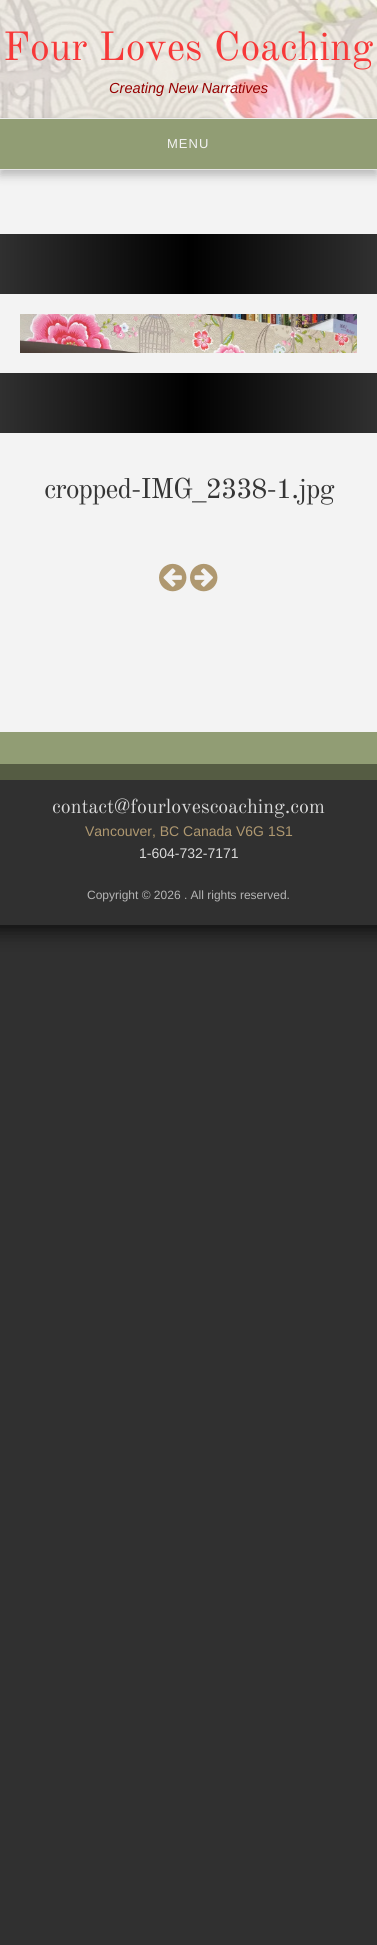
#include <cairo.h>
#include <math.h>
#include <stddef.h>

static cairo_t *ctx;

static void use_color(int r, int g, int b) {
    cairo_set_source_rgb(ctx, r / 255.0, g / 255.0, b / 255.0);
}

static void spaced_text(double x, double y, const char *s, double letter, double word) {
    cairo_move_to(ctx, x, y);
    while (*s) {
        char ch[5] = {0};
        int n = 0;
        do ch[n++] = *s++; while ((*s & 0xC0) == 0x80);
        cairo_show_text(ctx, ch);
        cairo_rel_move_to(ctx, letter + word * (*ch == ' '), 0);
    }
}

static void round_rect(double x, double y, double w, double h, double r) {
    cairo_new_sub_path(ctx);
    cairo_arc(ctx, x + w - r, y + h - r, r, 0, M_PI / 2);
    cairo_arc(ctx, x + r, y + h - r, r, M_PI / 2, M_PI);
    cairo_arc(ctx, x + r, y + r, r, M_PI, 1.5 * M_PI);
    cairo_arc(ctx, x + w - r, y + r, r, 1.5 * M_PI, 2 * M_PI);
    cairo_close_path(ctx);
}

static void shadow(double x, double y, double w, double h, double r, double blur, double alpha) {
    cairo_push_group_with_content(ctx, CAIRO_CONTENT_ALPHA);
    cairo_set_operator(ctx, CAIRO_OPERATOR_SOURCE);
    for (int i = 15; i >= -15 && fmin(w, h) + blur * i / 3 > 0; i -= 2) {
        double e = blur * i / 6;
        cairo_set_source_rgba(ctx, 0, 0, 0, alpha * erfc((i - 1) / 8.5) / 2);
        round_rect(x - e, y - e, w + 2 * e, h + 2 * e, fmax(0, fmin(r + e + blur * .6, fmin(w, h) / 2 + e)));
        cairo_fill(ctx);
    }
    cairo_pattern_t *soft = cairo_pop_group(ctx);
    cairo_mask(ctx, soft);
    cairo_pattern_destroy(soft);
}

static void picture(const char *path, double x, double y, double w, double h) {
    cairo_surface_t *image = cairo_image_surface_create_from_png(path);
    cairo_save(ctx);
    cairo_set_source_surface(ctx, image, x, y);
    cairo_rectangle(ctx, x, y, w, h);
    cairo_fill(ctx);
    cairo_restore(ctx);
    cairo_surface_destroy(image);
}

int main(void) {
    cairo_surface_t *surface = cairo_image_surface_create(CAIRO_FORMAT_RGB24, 377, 1945);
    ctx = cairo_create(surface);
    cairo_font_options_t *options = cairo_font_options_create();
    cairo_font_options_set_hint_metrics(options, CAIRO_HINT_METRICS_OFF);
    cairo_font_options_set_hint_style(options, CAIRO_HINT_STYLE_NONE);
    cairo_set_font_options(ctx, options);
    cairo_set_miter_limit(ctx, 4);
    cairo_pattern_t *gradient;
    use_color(48, 48, 48);
    cairo_paint(ctx);
    use_color(0, 0, 0);
    shadow(-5, -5, 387, 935, 0, 10, 0.75);
    use_color(243, 243, 243);
    cairo_rectangle(ctx, 0, 170, 377, 562);
    cairo_fill(ctx);
    picture("img1.png", 0, 0, 377, 118);
    cairo_select_font_face(ctx, "Old Standard TT", CAIRO_FONT_SLANT_NORMAL, CAIRO_FONT_WEIGHT_NORMAL);
    cairo_set_font_size(ctx, 40);
    use_color(247, 56, 56);
    cairo_move_to(ctx, 3, 60);
    cairo_show_text(ctx, "Four Loves Coaching");
    cairo_select_font_face(ctx, "Liberation Sans", CAIRO_FONT_SLANT_ITALIC, CAIRO_FONT_WEIGHT_NORMAL);
    cairo_set_font_size(ctx, 14.6);
    use_color(150, 1, 1);
    cairo_move_to(ctx, 109, 93);
    cairo_show_text(ctx, "Creating New Narratives");
    use_color(0, 0, 0);
    shadow(0, 123, 377, 52, 0, 5, 0.25);
    use_color(239, 239, 239);
    cairo_rectangle(ctx, 0, 118, 377, 1);
    cairo_fill(ctx);
    use_color(229, 229, 229);
    cairo_rectangle(ctx, 0, 169, 377, 1);
    cairo_fill(ctx);
    use_color(145, 157, 116);
    cairo_rectangle(ctx, 0, 119, 377, 50);
    cairo_fill(ctx);
    cairo_select_font_face(ctx, "Liberation Sans", CAIRO_FONT_SLANT_NORMAL, CAIRO_FONT_WEIGHT_NORMAL);
    cairo_set_font_size(ctx, 13);
    use_color(243, 243, 243);
    spaced_text(167, 148, "MENU", 1, 0);
    gradient = cairo_pattern_create_linear(0, 334, 377, 334);
    cairo_pattern_add_color_stop_rgba(gradient, 0, 0.188, 0.188, 0.188, 1);
    cairo_pattern_add_color_stop_rgba(gradient, 0.5, 0, 0, 0, 1);
    cairo_pattern_add_color_stop_rgba(gradient, 1, 0.188, 0.188, 0.188, 1);
    cairo_set_source(ctx, gradient);
    cairo_pattern_destroy(gradient);
    cairo_rectangle(ctx, 0, 234, 377, 199);
    cairo_fill(ctx);
    cairo_rectangle(ctx, 10, 304, 357, 59);
    use_color(243, 243, 243);
    cairo_set_line_width(ctx, 20);
    cairo_stroke(ctx);
    picture("img2.png", 20, 314, 337, 39);
    cairo_select_font_face(ctx, "Old Standard TT", CAIRO_FONT_SLANT_NORMAL, CAIRO_FONT_WEIGHT_NORMAL);
    cairo_set_font_size(ctx, 28);
    use_color(53, 53, 53);
    spaced_text(44, 498, "cropped-IMG_2338-1.jpg", -1, 0);
    picture("img3.png", 159, 563, 28, 29);
    picture("img4.png", 190, 563, 28, 29);
    use_color(145, 157, 116);
    cairo_rectangle(ctx, 0, 732, 377, 32);
    cairo_fill(ctx);
    use_color(85, 92, 67);
    cairo_rectangle(ctx, 0, 764, 377, 16);
    cairo_fill(ctx);
    use_color(48, 48, 48);
    cairo_rectangle(ctx, 0, 780, 377, 145);
    cairo_fill(ctx);
    cairo_set_font_size(ctx, 20);
    use_color(218, 218, 218);
    cairo_move_to(ctx, 52, 813);
    cairo_show_text(ctx, "contact@fourlovescoaching.com");
    cairo_select_font_face(ctx, "Liberation Sans", CAIRO_FONT_SLANT_NORMAL, CAIRO_FONT_WEIGHT_NORMAL);
    cairo_set_font_size(ctx, 14);
    use_color(175, 152, 112);
    cairo_move_to(ctx, 85, 836);
    cairo_show_text(ctx, "Vancouver, BC Canada V6G 1S1");
    use_color(218, 218, 218);
    cairo_move_to(ctx, 139, 858);
    cairo_show_text(ctx, "1-604-732-7171");
    cairo_set_font_size(ctx, 12);
    use_color(181, 181, 181);
    cairo_move_to(ctx, 87, 899);
    cairo_show_text(ctx, "Copyright © 2026 . All rights reserved.");
    cairo_surface_write_to_png(surface, "result.png");
    cairo_font_options_destroy(options);
    cairo_destroy(ctx);
    cairo_surface_destroy(surface);
    return 0;
}
